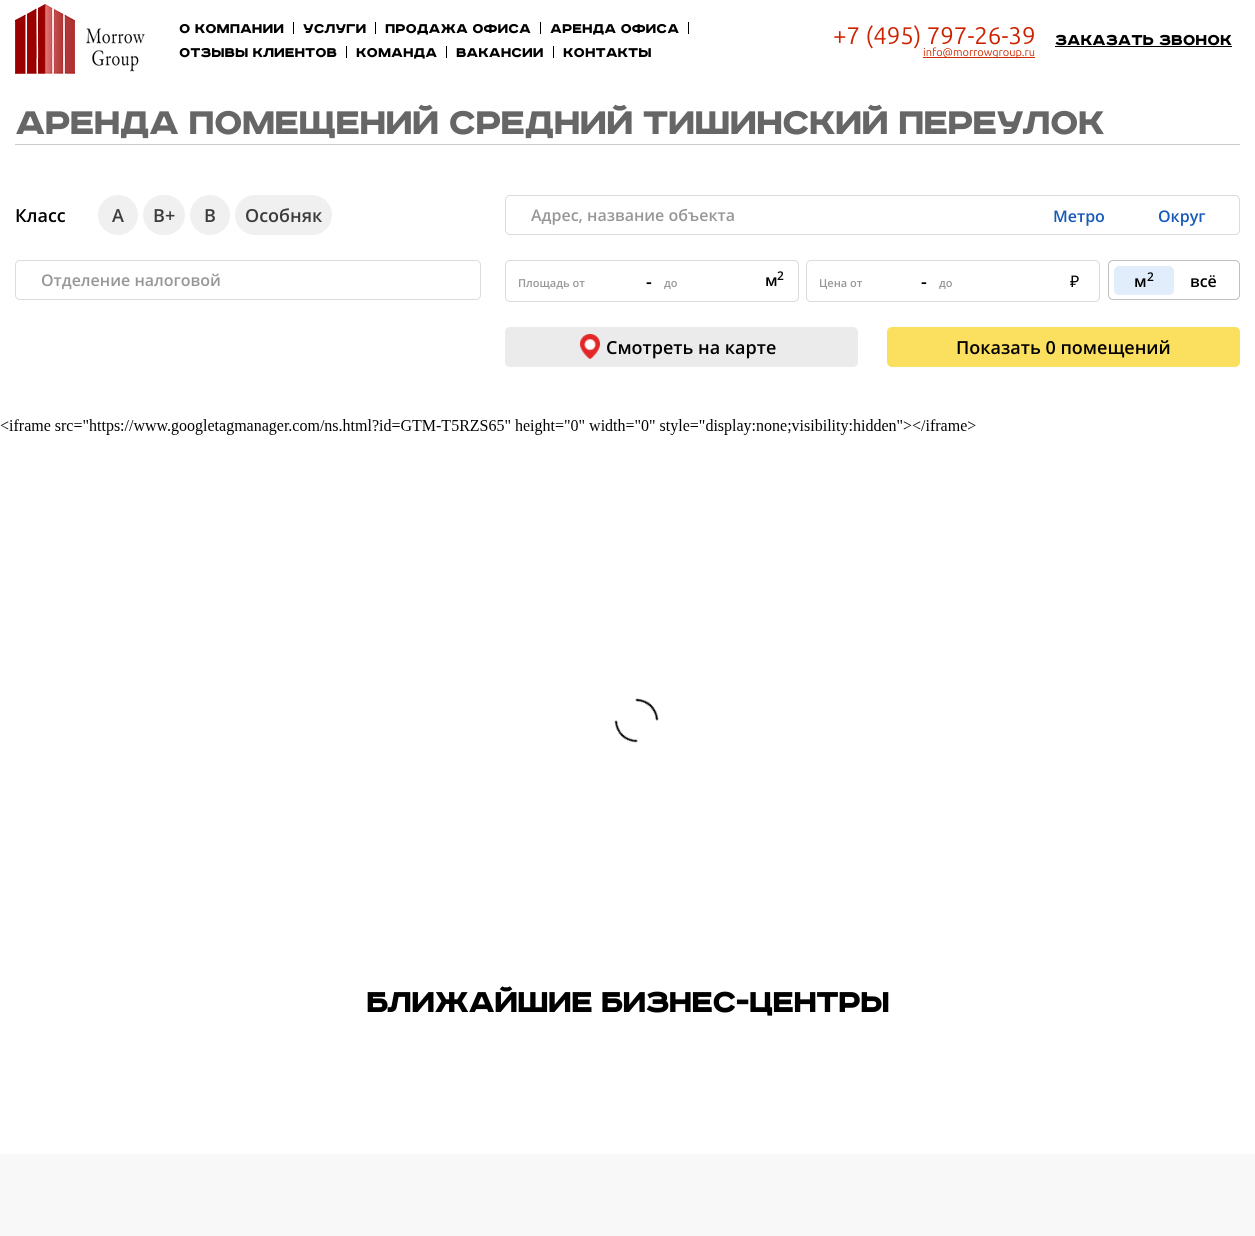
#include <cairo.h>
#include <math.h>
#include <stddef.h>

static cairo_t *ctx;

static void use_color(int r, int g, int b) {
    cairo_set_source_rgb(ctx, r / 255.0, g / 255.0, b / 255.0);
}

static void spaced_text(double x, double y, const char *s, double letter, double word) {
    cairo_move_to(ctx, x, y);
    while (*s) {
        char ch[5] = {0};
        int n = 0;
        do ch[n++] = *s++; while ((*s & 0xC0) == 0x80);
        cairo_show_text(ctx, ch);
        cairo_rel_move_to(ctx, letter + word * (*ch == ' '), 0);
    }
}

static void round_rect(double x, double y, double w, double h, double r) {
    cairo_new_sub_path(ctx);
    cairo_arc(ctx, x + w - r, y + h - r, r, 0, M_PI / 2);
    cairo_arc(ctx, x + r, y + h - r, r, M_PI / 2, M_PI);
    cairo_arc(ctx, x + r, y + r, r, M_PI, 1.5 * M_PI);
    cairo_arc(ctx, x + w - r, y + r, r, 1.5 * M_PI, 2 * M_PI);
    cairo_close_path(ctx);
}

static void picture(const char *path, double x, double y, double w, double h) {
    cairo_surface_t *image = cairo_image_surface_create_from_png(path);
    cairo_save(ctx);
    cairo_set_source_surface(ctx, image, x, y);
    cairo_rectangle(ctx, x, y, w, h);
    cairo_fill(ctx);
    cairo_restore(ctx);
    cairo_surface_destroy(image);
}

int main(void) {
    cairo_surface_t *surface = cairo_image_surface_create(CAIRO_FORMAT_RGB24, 1255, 1236);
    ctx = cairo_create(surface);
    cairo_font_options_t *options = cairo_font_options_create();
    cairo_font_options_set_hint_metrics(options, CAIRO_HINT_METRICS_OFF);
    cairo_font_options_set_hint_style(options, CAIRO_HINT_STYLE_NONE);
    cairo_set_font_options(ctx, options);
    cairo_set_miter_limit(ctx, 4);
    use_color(255, 255, 255);
    cairo_paint(ctx);
    picture("img1.png", 15, 4, 130, 70);
    cairo_select_font_face(ctx, "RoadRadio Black", CAIRO_FONT_SLANT_NORMAL, CAIRO_FONT_WEIGHT_NORMAL);
    cairo_set_font_size(ctx, 16);
    use_color(0, 0, 0);
    cairo_move_to(ctx, 179, 33);
    cairo_show_text(ctx, "О компании");
    cairo_rectangle(ctx, 293, 22, 1, 12);
    cairo_fill(ctx);
    cairo_move_to(ctx, 303, 33);
    cairo_show_text(ctx, "Услуги");
    cairo_rectangle(ctx, 375, 22, 1, 12);
    cairo_fill(ctx);
    cairo_move_to(ctx, 385, 33);
    cairo_show_text(ctx, "Продажа офиса");
    cairo_rectangle(ctx, 540, 22, 1, 12);
    cairo_fill(ctx);
    cairo_move_to(ctx, 550, 33);
    cairo_show_text(ctx, "Аренда офиса");
    cairo_rectangle(ctx, 688, 22, 1, 12);
    cairo_fill(ctx);
    cairo_move_to(ctx, 179, 57);
    cairo_show_text(ctx, "Отзывы клиентов");
    cairo_rectangle(ctx, 346, 46, 1, 12);
    cairo_fill(ctx);
    cairo_move_to(ctx, 356, 57);
    cairo_show_text(ctx, "Команда");
    cairo_rectangle(ctx, 446, 46, 1, 12);
    cairo_fill(ctx);
    cairo_move_to(ctx, 456, 57);
    cairo_show_text(ctx, "Вакансии");
    cairo_rectangle(ctx, 553, 46, 1, 12);
    cairo_fill(ctx);
    cairo_move_to(ctx, 563, 57);
    cairo_show_text(ctx, "Контакты");
    cairo_select_font_face(ctx, "Ubuntu", CAIRO_FONT_SLANT_NORMAL, CAIRO_FONT_WEIGHT_NORMAL);
    cairo_set_font_size(ctx, 24);
    use_color(204, 34, 0);
    cairo_move_to(ctx, 833, 44);
    cairo_show_text(ctx, "+7 (495) 797-26-39");
    use_color(209, 42, 1);
    cairo_rectangle(ctx, 923, 57, 112, 1);
    cairo_fill(ctx);
    cairo_set_font_size(ctx, 11);
    cairo_move_to(ctx, 923, 56);
    cairo_show_text(ctx, "info@morrowgroup.ru");
    cairo_select_font_face(ctx, "RoadRadio Black", CAIRO_FONT_SLANT_NORMAL, CAIRO_FONT_WEIGHT_NORMAL);
    cairo_set_font_size(ctx, 18);
    use_color(0, 0, 0);
    cairo_move_to(ctx, 1055, 45);
    cairo_show_text(ctx, "Заказать звонок");
    cairo_rectangle(ctx, 1055, 46, 177, 1);
    cairo_fill(ctx);
    use_color(203, 203, 203);
    cairo_rectangle(ctx, 15, 144, 1225, 1);
    cairo_fill(ctx);
    cairo_set_font_size(ctx, 41);
    use_color(102, 102, 102);
    spaced_text(15, 134, "АРЕНДА ПОМЕЩЕНИЙ СРЕДНИЙ ТИШИНСКИЙ ПЕРЕУЛОК", -1, 0);
    cairo_select_font_face(ctx, "Open Sans SemiBold", CAIRO_FONT_SLANT_NORMAL, CAIRO_FONT_WEIGHT_NORMAL);
    cairo_set_font_size(ctx, 18);
    use_color(0, 0, 0);
    cairo_move_to(ctx, 15, 222);
    cairo_show_text(ctx, "Класс");
    use_color(240, 240, 240);
    cairo_new_path(ctx);
    cairo_arc(ctx, 118, 215, 20, 0, 2 * M_PI);
    cairo_fill(ctx);
    use_color(60, 60, 60);
    cairo_move_to(ctx, 112, 222);
    cairo_show_text(ctx, "А");
    use_color(240, 240, 240);
    round_rect(143, 195, 42, 40, 20);
    cairo_fill(ctx);
    use_color(60, 60, 60);
    cairo_move_to(ctx, 153, 222);
    cairo_show_text(ctx, "В+");
    use_color(240, 240, 240);
    cairo_new_path(ctx);
    cairo_arc(ctx, 210, 215, 20, 0, 2 * M_PI);
    cairo_fill(ctx);
    use_color(60, 60, 60);
    cairo_move_to(ctx, 204, 222);
    cairo_show_text(ctx, "В");
    use_color(240, 240, 240);
    round_rect(235, 195, 97, 40, 20);
    cairo_fill(ctx);
    use_color(60, 60, 60);
    cairo_move_to(ctx, 245, 222);
    cairo_show_text(ctx, "Особняк");
    round_rect(15.5, 260.5, 465, 39, 4.5);
    use_color(219, 219, 219);
    cairo_set_line_width(ctx, 1);
    cairo_stroke(ctx);
    cairo_set_font_size(ctx, 16);
    use_color(151, 151, 151);
    cairo_move_to(ctx, 41, 286);
    cairo_show_text(ctx, "Отделение налоговой");
    round_rect(505.5, 195.5, 734, 39, 4.5);
    use_color(219, 219, 219);
    cairo_stroke(ctx);
    use_color(151, 151, 151);
    cairo_move_to(ctx, 531, 221);
    cairo_show_text(ctx, "Адрес, название объекта");
    use_color(23, 89, 187);
    cairo_move_to(ctx, 1053, 222);
    cairo_show_text(ctx, "Метро");
    cairo_move_to(ctx, 1158, 222);
    cairo_show_text(ctx, "Округ");
    round_rect(505.5, 260.5, 293, 41, 4.5);
    use_color(219, 219, 219);
    cairo_stroke(ctx);
    use_color(255, 255, 255);
    round_rect(506, 261, 122, 40, 5);
    cairo_fill(ctx);
    cairo_set_font_size(ctx, 11);
    use_color(151, 151, 151);
    cairo_move_to(ctx, 518, 287);
    cairo_show_text(ctx, "Площадь от");
    cairo_set_font_size(ctx, 18);
    use_color(0, 0, 0);
    cairo_move_to(ctx, 646, 288);
    cairo_show_text(ctx, "-");
    cairo_save(ctx);
    cairo_rectangle(ctx, 664, 275, 51, 15);
    cairo_clip(ctx);
    cairo_set_font_size(ctx, 11);
    use_color(151, 151, 151);
    cairo_move_to(ctx, 664, 287);
    cairo_show_text(ctx, "до");
    cairo_restore(ctx);
    cairo_set_font_size(ctx, 12);
    cairo_move_to(ctx, 777, 280);
    cairo_show_text(ctx, "2");
    cairo_set_font_size(ctx, 16);
    cairo_move_to(ctx, 765, 286);
    cairo_show_text(ctx, "м");
    round_rect(806.5, 260.5, 293, 41, 4.5);
    use_color(219, 219, 219);
    cairo_stroke(ctx);
    use_color(255, 255, 255);
    round_rect(807, 261, 88, 40, 5);
    cairo_fill(ctx);
    cairo_set_font_size(ctx, 11);
    use_color(151, 151, 151);
    cairo_move_to(ctx, 819, 287);
    cairo_show_text(ctx, "Цена от");
    cairo_set_font_size(ctx, 18);
    use_color(0, 0, 0);
    cairo_move_to(ctx, 921, 288);
    cairo_show_text(ctx, "-");
    cairo_set_font_size(ctx, 11);
    use_color(151, 151, 151);
    cairo_move_to(ctx, 939, 287);
    cairo_show_text(ctx, "до");
    cairo_select_font_face(ctx, "Noto Sans", CAIRO_FONT_SLANT_NORMAL, CAIRO_FONT_WEIGHT_NORMAL);
    cairo_set_font_size(ctx, 16);
    use_color(0, 0, 0);
    cairo_move_to(ctx, 1070, 287);
    cairo_show_text(ctx, "₽");
    round_rect(1108.5, 260.5, 131, 39, 4.5);
    use_color(191, 191, 191);
    cairo_stroke(ctx);
    use_color(225, 237, 250);
    round_rect(1114, 266, 60, 29, 5);
    cairo_fill(ctx);
    cairo_select_font_face(ctx, "Open Sans SemiBold", CAIRO_FONT_SLANT_NORMAL, CAIRO_FONT_WEIGHT_NORMAL);
    cairo_set_font_size(ctx, 12);
    use_color(0, 0, 0);
    cairo_move_to(ctx, 1147, 281);
    cairo_show_text(ctx, "2");
    cairo_set_font_size(ctx, 16);
    cairo_move_to(ctx, 1134, 287);
    cairo_show_text(ctx, "м");
    cairo_move_to(ctx, 1190, 287);
    cairo_show_text(ctx, "всё");
    use_color(235, 235, 235);
    round_rect(505, 327, 353, 40, 5);
    cairo_fill(ctx);
    picture("img2.png", 580, 334, 20, 25);
    cairo_set_font_size(ctx, 18);
    use_color(0, 0, 0);
    cairo_move_to(ctx, 606, 354);
    cairo_show_text(ctx, "Смотреть на карте");
    use_color(251, 223, 94);
    round_rect(887, 327, 353, 40, 5);
    cairo_fill(ctx);
    use_color(0, 0, 0);
    cairo_move_to(ctx, 956, 354);
    cairo_show_text(ctx, "Показать 0 помещений");
    picture("img3.png", 0, 419, 976, 324);
    cairo_select_font_face(ctx, "RoadRadio Black", CAIRO_FONT_SLANT_NORMAL, CAIRO_FONT_WEIGHT_NORMAL);
    cairo_set_font_size(ctx, 36);
    spaced_text(366, 1012, "БЛИЖАЙШИЕ БИЗНЕС-ЦЕНТРЫ", -1, 0);
    use_color(248, 248, 248);
    cairo_rectangle(ctx, 0, 1154, 1255, 82);
    cairo_fill(ctx);
    cairo_surface_write_to_png(surface, "result.png");
    cairo_font_options_destroy(options);
    cairo_destroy(ctx);
    cairo_surface_destroy(surface);
    return 0;
}
